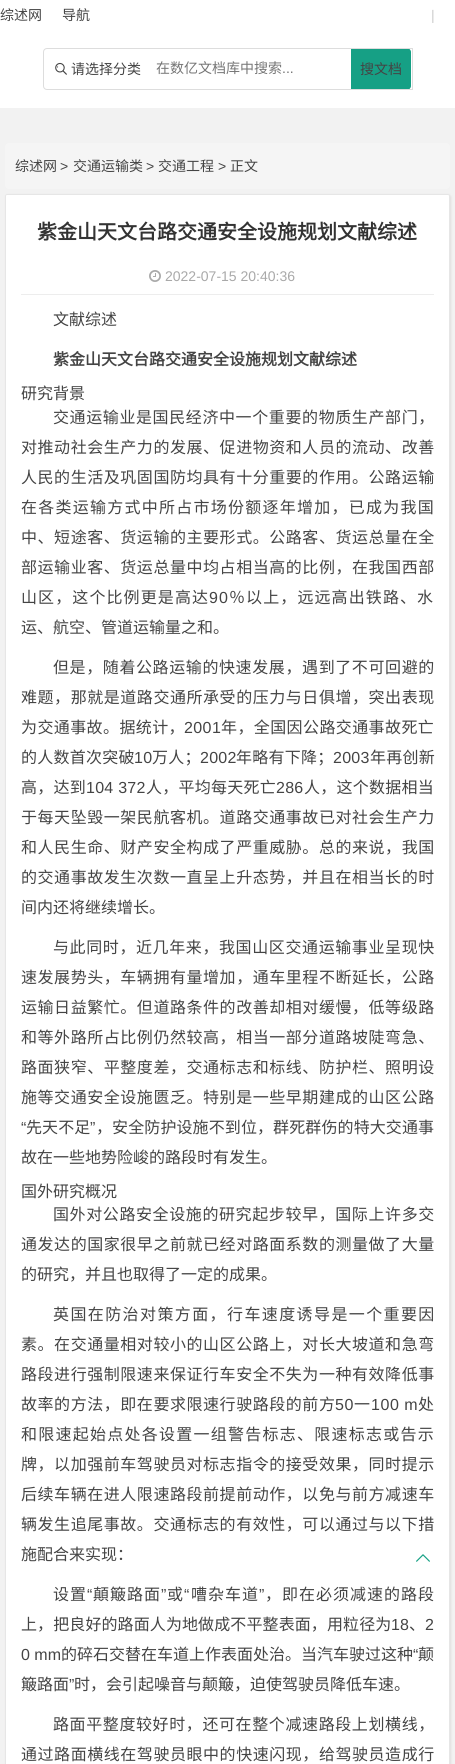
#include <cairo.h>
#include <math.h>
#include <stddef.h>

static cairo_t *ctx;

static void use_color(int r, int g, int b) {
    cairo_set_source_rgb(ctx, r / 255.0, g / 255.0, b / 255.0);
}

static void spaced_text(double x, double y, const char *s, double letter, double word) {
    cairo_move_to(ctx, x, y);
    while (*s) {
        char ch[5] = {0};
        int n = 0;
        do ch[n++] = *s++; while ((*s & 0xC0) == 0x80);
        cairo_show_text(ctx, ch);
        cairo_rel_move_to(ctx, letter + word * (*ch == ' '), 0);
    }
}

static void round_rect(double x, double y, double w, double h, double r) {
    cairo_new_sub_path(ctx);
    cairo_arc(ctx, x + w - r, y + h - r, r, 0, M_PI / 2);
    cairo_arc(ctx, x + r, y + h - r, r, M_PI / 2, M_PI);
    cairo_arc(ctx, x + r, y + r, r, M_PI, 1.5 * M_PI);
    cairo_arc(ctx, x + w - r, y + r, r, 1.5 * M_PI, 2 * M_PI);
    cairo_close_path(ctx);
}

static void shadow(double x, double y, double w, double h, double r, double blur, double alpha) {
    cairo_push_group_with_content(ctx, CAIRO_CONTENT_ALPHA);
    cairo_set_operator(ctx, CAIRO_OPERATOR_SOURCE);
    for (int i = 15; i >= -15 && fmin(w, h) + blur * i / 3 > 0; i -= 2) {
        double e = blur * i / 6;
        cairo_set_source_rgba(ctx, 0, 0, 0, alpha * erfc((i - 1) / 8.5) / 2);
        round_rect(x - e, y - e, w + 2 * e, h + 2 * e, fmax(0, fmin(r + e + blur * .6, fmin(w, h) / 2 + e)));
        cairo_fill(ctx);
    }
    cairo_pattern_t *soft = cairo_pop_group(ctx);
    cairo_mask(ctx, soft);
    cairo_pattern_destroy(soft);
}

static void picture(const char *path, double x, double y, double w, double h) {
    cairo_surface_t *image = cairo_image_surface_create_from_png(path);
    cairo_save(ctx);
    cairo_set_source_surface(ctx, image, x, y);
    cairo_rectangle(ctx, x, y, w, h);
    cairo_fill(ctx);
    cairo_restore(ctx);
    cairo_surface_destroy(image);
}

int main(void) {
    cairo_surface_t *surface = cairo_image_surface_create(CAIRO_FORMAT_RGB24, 455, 1764);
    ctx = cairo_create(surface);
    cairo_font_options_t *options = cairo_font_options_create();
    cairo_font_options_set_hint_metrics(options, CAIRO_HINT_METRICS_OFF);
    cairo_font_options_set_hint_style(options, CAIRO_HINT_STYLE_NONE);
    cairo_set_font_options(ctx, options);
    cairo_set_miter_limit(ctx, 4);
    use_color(242, 242, 242);
    cairo_paint(ctx);
    use_color(255, 255, 255);
    cairo_rectangle(ctx, 0, 0, 455, 108);
    cairo_fill(ctx);
    cairo_select_font_face(ctx, "Noto Sans CJK SC", CAIRO_FONT_SLANT_NORMAL, CAIRO_FONT_WEIGHT_NORMAL);
    cairo_set_font_size(ctx, 14);
    use_color(68, 68, 68);
    cairo_move_to(ctx, 0, 20);
    cairo_show_text(ctx, "综述网");
    cairo_move_to(ctx, 62, 20);
    cairo_show_text(ctx, "导航");
    cairo_select_font_face(ctx, "Liberation Sans", CAIRO_FONT_SLANT_NORMAL, CAIRO_FONT_WEIGHT_NORMAL);
    use_color(204, 204, 204);
    cairo_move_to(ctx, 431, 20);
    cairo_show_text(ctx, "|");
    cairo_new_path(ctx);
    cairo_move_to(ctx, 47, 48.5);
    cairo_line_to(ctx, 412.5, 48.5);
    cairo_line_to(ctx, 412.5, 89.5);
    cairo_line_to(ctx, 47, 89.5);
    cairo_curve_to(ctx, 45, 89.5, 43.5, 88, 43.5, 86);
    cairo_line_to(ctx, 43.5, 52);
    cairo_curve_to(ctx, 43.5, 50, 45, 48.5, 47, 48.5);
    cairo_close_path(ctx);
    use_color(221, 221, 221);
    cairo_set_line_width(ctx, 1);
    cairo_stroke(ctx);
    picture("img1.png", 55, 62, 12, 13);
    cairo_select_font_face(ctx, "Noto Sans CJK SC", CAIRO_FONT_SLANT_NORMAL, CAIRO_FONT_WEIGHT_NORMAL);
    use_color(68, 68, 68);
    cairo_move_to(ctx, 71, 74);
    cairo_show_text(ctx, "请选择分类");
    use_color(117, 117, 117);
    cairo_move_to(ctx, 156, 73);
    cairo_show_text(ctx, "在数亿文档库中搜索");
    cairo_select_font_face(ctx, "Liberation Sans", CAIRO_FONT_SLANT_NORMAL, CAIRO_FONT_WEIGHT_NORMAL);
    cairo_move_to(ctx, 282, 73);
    cairo_show_text(ctx, "...");
    cairo_save(ctx);
    cairo_new_path(ctx);
    cairo_move_to(ctx, 47, 49);
    cairo_line_to(ctx, 412, 49);
    cairo_line_to(ctx, 412, 89);
    cairo_line_to(ctx, 47, 89);
    cairo_curve_to(ctx, 45.5, 89, 44, 87.5, 44, 86);
    cairo_line_to(ctx, 44, 52);
    cairo_curve_to(ctx, 44, 50.5, 45.5, 49, 47, 49);
    cairo_close_path(ctx);
    cairo_clip(ctx);
    use_color(22, 160, 133);
    cairo_new_path(ctx);
    cairo_move_to(ctx, 351, 48);
    cairo_line_to(ctx, 407, 48);
    cairo_curve_to(ctx, 409, 48, 411, 50, 411, 52);
    cairo_line_to(ctx, 411, 86);
    cairo_curve_to(ctx, 411, 88, 409, 90, 407, 90);
    cairo_line_to(ctx, 351, 90);
    cairo_close_path(ctx);
    cairo_fill(ctx);
    cairo_restore(ctx);
    cairo_select_font_face(ctx, "Noto Sans CJK SC", CAIRO_FONT_SLANT_NORMAL, CAIRO_FONT_WEIGHT_NORMAL);
    use_color(68, 68, 68);
    cairo_move_to(ctx, 360, 74);
    cairo_show_text(ctx, "搜文档");
    use_color(245, 245, 245);
    round_rect(5, 143, 445, 46, 4);
    cairo_fill(ctx);
    use_color(68, 68, 68);
    cairo_move_to(ctx, 15, 171);
    cairo_show_text(ctx, "综述网");
    cairo_select_font_face(ctx, "Liberation Sans", CAIRO_FONT_SLANT_NORMAL, CAIRO_FONT_WEIGHT_NORMAL);
    cairo_move_to(ctx, 60, 171);
    cairo_show_text(ctx, ">");
    cairo_select_font_face(ctx, "Noto Sans CJK SC", CAIRO_FONT_SLANT_NORMAL, CAIRO_FONT_WEIGHT_NORMAL);
    cairo_move_to(ctx, 73, 171);
    cairo_show_text(ctx, "交通运输类");
    cairo_select_font_face(ctx, "Liberation Sans", CAIRO_FONT_SLANT_NORMAL, CAIRO_FONT_WEIGHT_NORMAL);
    cairo_move_to(ctx, 146, 171);
    cairo_show_text(ctx, ">");
    cairo_select_font_face(ctx, "Noto Sans CJK SC", CAIRO_FONT_SLANT_NORMAL, CAIRO_FONT_WEIGHT_NORMAL);
    cairo_move_to(ctx, 158, 171);
    cairo_show_text(ctx, "交通工程");
    cairo_select_font_face(ctx, "Liberation Sans", CAIRO_FONT_SLANT_NORMAL, CAIRO_FONT_WEIGHT_NORMAL);
    cairo_move_to(ctx, 218, 171);
    cairo_show_text(ctx, ">");
    cairo_select_font_face(ctx, "Noto Sans CJK SC", CAIRO_FONT_SLANT_NORMAL, CAIRO_FONT_WEIGHT_NORMAL);
    cairo_move_to(ctx, 230, 171);
    cairo_show_text(ctx, "正文");
    use_color(226, 222, 222);
    shadow(6, 195, 445, 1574, 2, 1, 1);
    use_color(255, 255, 255);
    round_rect(5.5, 194.5, 444, 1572, 1.5);
    cairo_fill_preserve(ctx);
    use_color(230, 230, 230);
    cairo_stroke(ctx);
    cairo_select_font_face(ctx, "Noto Sans CJK SC", CAIRO_FONT_SLANT_NORMAL, CAIRO_FONT_WEIGHT_BOLD);
    cairo_set_font_size(ctx, 20);
    use_color(51, 51, 51);
    cairo_move_to(ctx, 37, 239);
    cairo_show_text(ctx, "紫金山天文台路交通安全设施规划文献综述");
    use_color(237, 237, 237);
    cairo_rectangle(ctx, 21, 294, 413, 1);
    cairo_fill(ctx);
    picture("img2.png", 149, 270, 12, 12);
    cairo_select_font_face(ctx, "Liberation Sans", CAIRO_FONT_SLANT_NORMAL, CAIRO_FONT_WEIGHT_NORMAL);
    cairo_set_font_size(ctx, 14);
    use_color(169, 169, 169);
    cairo_move_to(ctx, 165, 281);
    cairo_show_text(ctx, "2022-07-15 20:40:36");
    cairo_select_font_face(ctx, "Noto Sans CJK SC", CAIRO_FONT_SLANT_NORMAL, CAIRO_FONT_WEIGHT_NORMAL);
    cairo_set_font_size(ctx, 16);
    use_color(68, 68, 68);
    cairo_move_to(ctx, 53, 325);
    cairo_show_text(ctx, "文献综述");
    cairo_select_font_face(ctx, "Noto Sans CJK SC", CAIRO_FONT_SLANT_NORMAL, CAIRO_FONT_WEIGHT_BOLD);
    cairo_move_to(ctx, 53, 365);
    cairo_show_text(ctx, "紫金山天文台路交通安全设施规划文献综述");
    cairo_select_font_face(ctx, "Noto Sans CJK SC", CAIRO_FONT_SLANT_NORMAL, CAIRO_FONT_WEIGHT_NORMAL);
    cairo_move_to(ctx, 21, 399);
    cairo_show_text(ctx, "研究背景");
    spaced_text(53, 423, "交通运输业是国民经济中一个重要的物质生产部门，", 0.6, 0);
    spaced_text(21, 453, "对推动社会生产力的发展、促进物资和人员的流动、改善", 0.55, 0);
    spaced_text(21, 483, "人民的生活及巩固国防均具有十分重要的作用。公路运输", 0.55, 0);
    spaced_text(21, 513, "在各类运输方式中所占市场份额逐年增加，已成为我国", 1.25, 0);
    spaced_text(21, 543, "中、短途客、货运输的主要形式。公路客、货运总量在全", 0.55, 0);
    spaced_text(21, 573, "部运输业客、货运总量中均占相当高的比例，在我国西部", 0.55, 0);
    spaced_text(21, 603, "山区，这个比例更是高达", 1.1, 0);
    cairo_select_font_face(ctx, "Liberation Sans", CAIRO_FONT_SLANT_NORMAL, CAIRO_FONT_WEIGHT_NORMAL);
    spaced_text(209, 603, "90", 1.1, 0);
    cairo_select_font_face(ctx, "Noto Sans CJK SC", CAIRO_FONT_SLANT_NORMAL, CAIRO_FONT_WEIGHT_NORMAL);
    spaced_text(229, 603, "％以上，远远高出铁路、水", 1.1, 0);
    cairo_move_to(ctx, 21, 633);
    cairo_show_text(ctx, "运、航空、管道运输量之和。");
    spaced_text(53, 673, "但是，随着公路运输的快速发展，遇到了不可回避的", 0.6, 0);
    spaced_text(21, 703, "难题，那就是道路交通所承受的压力与日俱增，突出表现", 0.55, 0);
    spaced_text(21, 733, "为交通事故。据统计，", 0.4, 0);
    cairo_select_font_face(ctx, "Liberation Sans", CAIRO_FONT_SLANT_NORMAL, CAIRO_FONT_WEIGHT_NORMAL);
    spaced_text(184, 733, "2001", 0.4, 0);
    cairo_select_font_face(ctx, "Noto Sans CJK SC", CAIRO_FONT_SLANT_NORMAL, CAIRO_FONT_WEIGHT_NORMAL);
    spaced_text(221, 733, "年，全国因公路交通事故死亡", 0.4, 0);
    spaced_text(21, 763, "的人数首次突破", 0.25, 0);
    cairo_select_font_face(ctx, "Liberation Sans", CAIRO_FONT_SLANT_NORMAL, CAIRO_FONT_WEIGHT_NORMAL);
    spaced_text(134, 763, "10", 0.25, 0);
    cairo_select_font_face(ctx, "Noto Sans CJK SC", CAIRO_FONT_SLANT_NORMAL, CAIRO_FONT_WEIGHT_NORMAL);
    spaced_text(152, 763, "万人；", 0.25, 0);
    cairo_select_font_face(ctx, "Liberation Sans", CAIRO_FONT_SLANT_NORMAL, CAIRO_FONT_WEIGHT_NORMAL);
    spaced_text(200, 763, "2002", 0.25, 0);
    cairo_select_font_face(ctx, "Noto Sans CJK SC", CAIRO_FONT_SLANT_NORMAL, CAIRO_FONT_WEIGHT_NORMAL);
    spaced_text(236, 763, "年略有下降；", 0.25, 0);
    cairo_select_font_face(ctx, "Liberation Sans", CAIRO_FONT_SLANT_NORMAL, CAIRO_FONT_WEIGHT_NORMAL);
    spaced_text(333, 763, "2003", 0.25, 0);
    cairo_select_font_face(ctx, "Noto Sans CJK SC", CAIRO_FONT_SLANT_NORMAL, CAIRO_FONT_WEIGHT_NORMAL);
    spaced_text(370, 763, "年再创新", 0.25, 0);
    spaced_text(21, 793, "高，达到", 0.25, 0);
    cairo_select_font_face(ctx, "Liberation Sans", CAIRO_FONT_SLANT_NORMAL, CAIRO_FONT_WEIGHT_NORMAL);
    spaced_text(86, 793, "104 372", 0.25, 0);
    cairo_select_font_face(ctx, "Noto Sans CJK SC", CAIRO_FONT_SLANT_NORMAL, CAIRO_FONT_WEIGHT_NORMAL);
    spaced_text(146, 793, "人，平均每天死亡", 0.25, 0);
    cairo_select_font_face(ctx, "Liberation Sans", CAIRO_FONT_SLANT_NORMAL, CAIRO_FONT_WEIGHT_NORMAL);
    spaced_text(276, 793, "286", 0.25, 0);
    cairo_select_font_face(ctx, "Noto Sans CJK SC", CAIRO_FONT_SLANT_NORMAL, CAIRO_FONT_WEIGHT_NORMAL);
    spaced_text(304, 793, "人，这个数据相当", 0.25, 0);
    spaced_text(21, 823, "于每天坠毁一架民航客机。道路交通事故已对社会生产力", 0.55, 0);
    spaced_text(21, 853, "和人民生命、财产安全构成了严重威胁。总的来说，我国", 0.55, 0);
    spaced_text(21, 883, "的交通事故发生次数一直呈上升态势，并且在相当长的时", 0.55, 0);
    cairo_move_to(ctx, 21, 913);
    cairo_show_text(ctx, "间内还将继续增长。");
    spaced_text(53, 953, "与此同时，近几年来，我国山区交通运输事业呈现快", 0.6, 0);
    spaced_text(21, 983, "速发展势头，车辆拥有量增加，通车里程不断延长，公路", 0.55, 0);
    spaced_text(21, 1013, "运输日益繁忙。但道路条件的改善却相对缓慢，低等级路", 0.55, 0);
    spaced_text(21, 1043, "和等外路所占比例仍然较高，相当一部分道路坡陡弯急、", 0.55, 0);
    spaced_text(21, 1073, "路面狭窄、平整度差，交通标志和标线、防护栏、照明设", 0.55, 0);
    spaced_text(21, 1103, "施等交通安全设施匮乏。特别是一些早期建成的山区公路", 0.55, 0);
    cairo_select_font_face(ctx, "Liberation Sans", CAIRO_FONT_SLANT_NORMAL, CAIRO_FONT_WEIGHT_NORMAL);
    spaced_text(21, 1133, "“", 0.1, 0);
    cairo_select_font_face(ctx, "Noto Sans CJK SC", CAIRO_FONT_SLANT_NORMAL, CAIRO_FONT_WEIGHT_NORMAL);
    spaced_text(26, 1133, "先天不足", 0.1, 0);
    cairo_select_font_face(ctx, "Liberation Sans", CAIRO_FONT_SLANT_NORMAL, CAIRO_FONT_WEIGHT_NORMAL);
    spaced_text(90, 1133, "”", 0.1, 0);
    cairo_select_font_face(ctx, "Noto Sans CJK SC", CAIRO_FONT_SLANT_NORMAL, CAIRO_FONT_WEIGHT_NORMAL);
    spaced_text(96, 1133, "，安全防护设施不到位，群死群伤的特大交通事", 0.1, 0);
    cairo_move_to(ctx, 21, 1163);
    cairo_show_text(ctx, "故在一些地势险峻的路段时有发生。");
    cairo_move_to(ctx, 21, 1197);
    cairo_show_text(ctx, "国外研究概况");
    spaced_text(53, 1220, "国外对公路安全设施的研究起步较早，国际上许多交", 0.6, 0);
    spaced_text(21, 1250, "通发达的国家很早之前就已经对路面系数的测量做了大量", 0.55, 0);
    cairo_move_to(ctx, 21, 1280);
    cairo_show_text(ctx, "的研究，并且也取得了一定的成果。");
    spaced_text(53, 1320, "英国在防治对策方面，行车速度诱导是一个重要因", 1.4, 0);
    spaced_text(21, 1350, "素。在交通量相对较小的山区公路上，对长大坡道和急弯", 0.55, 0);
    spaced_text(21, 1380, "路段进行强制限速来保证行车安全不失为一种有效降低事", 0.55, 0);
    spaced_text(21, 1410, "故率的方法，即在要求限速行驶路段的前方", 0.55, 0);
    cairo_select_font_face(ctx, "Liberation Sans", CAIRO_FONT_SLANT_NORMAL, CAIRO_FONT_WEIGHT_NORMAL);
    spaced_text(335, 1410, "50", 0.55, 0);
    cairo_select_font_face(ctx, "Noto Sans CJK SC", CAIRO_FONT_SLANT_NORMAL, CAIRO_FONT_WEIGHT_NORMAL);
    spaced_text(354, 1410, "一", 0.55, 0);
    cairo_select_font_face(ctx, "Liberation Sans", CAIRO_FONT_SLANT_NORMAL, CAIRO_FONT_WEIGHT_NORMAL);
    spaced_text(371, 1410, "100 m", 0.55, 0);
    cairo_select_font_face(ctx, "Noto Sans CJK SC", CAIRO_FONT_SLANT_NORMAL, CAIRO_FONT_WEIGHT_NORMAL);
    spaced_text(418, 1410, "处", 0.55, 0);
    spaced_text(21, 1440, "和限速起始点处各设置一组警告标志、限速标志或告示", 1.25, 0);
    spaced_text(21, 1470, "牌，以加强前车驾驶员对标志指令的接受效果，同时提示", 0.55, 0);
    spaced_text(21, 1500, "后续车辆在进人限速路段前提前动作，以免与前方减速车", 0.55, 0);
    spaced_text(21, 1530, "辆发生追尾事故。交通标志的有效性，可以通过与以下措", 0.55, 0);
    cairo_move_to(ctx, 21, 1560);
    cairo_show_text(ctx, "施配合来实现：");
    spaced_text(53, 1600, "设置", 1, 0);
    cairo_select_font_face(ctx, "Liberation Sans", CAIRO_FONT_SLANT_NORMAL, CAIRO_FONT_WEIGHT_NORMAL);
    spaced_text(87, 1600, "“", 1, 0);
    cairo_select_font_face(ctx, "Noto Sans CJK SC", CAIRO_FONT_SLANT_NORMAL, CAIRO_FONT_WEIGHT_NORMAL);
    spaced_text(93, 1600, "顛簸路面", 1, 0);
    cairo_select_font_face(ctx, "Liberation Sans", CAIRO_FONT_SLANT_NORMAL, CAIRO_FONT_WEIGHT_NORMAL);
    spaced_text(161, 1600, "”", 1, 0);
    cairo_select_font_face(ctx, "Noto Sans CJK SC", CAIRO_FONT_SLANT_NORMAL, CAIRO_FONT_WEIGHT_NORMAL);
    spaced_text(167, 1600, "或", 1, 0);
    cairo_select_font_face(ctx, "Liberation Sans", CAIRO_FONT_SLANT_NORMAL, CAIRO_FONT_WEIGHT_NORMAL);
    spaced_text(184, 1600, "“", 1, 0);
    cairo_select_font_face(ctx, "Noto Sans CJK SC", CAIRO_FONT_SLANT_NORMAL, CAIRO_FONT_WEIGHT_NORMAL);
    spaced_text(191, 1600, "嘈杂车道", 1, 0);
    cairo_select_font_face(ctx, "Liberation Sans", CAIRO_FONT_SLANT_NORMAL, CAIRO_FONT_WEIGHT_NORMAL);
    spaced_text(259, 1600, "”", 1, 0);
    cairo_select_font_face(ctx, "Noto Sans CJK SC", CAIRO_FONT_SLANT_NORMAL, CAIRO_FONT_WEIGHT_NORMAL);
    spaced_text(265, 1600, "，即在必须减速的路段", 1, 0);
    spaced_text(21, 1630, "上，把良好的路面人为地做成不平整表面，用粒径为", 0.1, 0);
    cairo_select_font_face(ctx, "Liberation Sans", CAIRO_FONT_SLANT_NORMAL, CAIRO_FONT_WEIGHT_NORMAL);
    spaced_text(391, 1630, "18", 0.1, 0);
    cairo_select_font_face(ctx, "Noto Sans CJK SC", CAIRO_FONT_SLANT_NORMAL, CAIRO_FONT_WEIGHT_NORMAL);
    spaced_text(409, 1630, "、", 0.1, 0);
    cairo_select_font_face(ctx, "Liberation Sans", CAIRO_FONT_SLANT_NORMAL, CAIRO_FONT_WEIGHT_NORMAL);
    spaced_text(425, 1630, "2", 0.1, 0);
    cairo_move_to(ctx, 21, 1660);
    cairo_show_text(ctx, "0 mm");
    cairo_select_font_face(ctx, "Noto Sans CJK SC", CAIRO_FONT_SLANT_NORMAL, CAIRO_FONT_WEIGHT_NORMAL);
    cairo_move_to(ctx, 61, 1660);
    cairo_show_text(ctx, "的碎石交替在车道上作表面处治。当汽车驶过这种");
    cairo_select_font_face(ctx, "Liberation Sans", CAIRO_FONT_SLANT_NORMAL, CAIRO_FONT_WEIGHT_NORMAL);
    cairo_move_to(ctx, 413, 1660);
    cairo_show_text(ctx, "“");
    cairo_select_font_face(ctx, "Noto Sans CJK SC", CAIRO_FONT_SLANT_NORMAL, CAIRO_FONT_WEIGHT_NORMAL);
    cairo_move_to(ctx, 418, 1660);
    cairo_show_text(ctx, "颠");
    cairo_move_to(ctx, 21, 1690);
    cairo_show_text(ctx, "簸路面");
    cairo_select_font_face(ctx, "Liberation Sans", CAIRO_FONT_SLANT_NORMAL, CAIRO_FONT_WEIGHT_NORMAL);
    cairo_move_to(ctx, 69, 1690);
    cairo_show_text(ctx, "”");
    cairo_select_font_face(ctx, "Noto Sans CJK SC", CAIRO_FONT_SLANT_NORMAL, CAIRO_FONT_WEIGHT_NORMAL);
    cairo_move_to(ctx, 74, 1690);
    cairo_show_text(ctx, "时，会引起噪音与颠簸，迫使驾驶员降低车速。");
    spaced_text(53, 1730, "路面平整度较好时，还可在整个减速路段上划横线，", 0.6, 0);
    spaced_text(21, 1760, "通过路面横线在驾驶员眼中的快速闪现，给驾驶员造成行", 0.55, 0);
    picture("img3.png", 416, 1554, 14, 8);
    cairo_surface_write_to_png(surface, "result.png");
    cairo_font_options_destroy(options);
    cairo_destroy(ctx);
    cairo_surface_destroy(surface);
    return 0;
}
